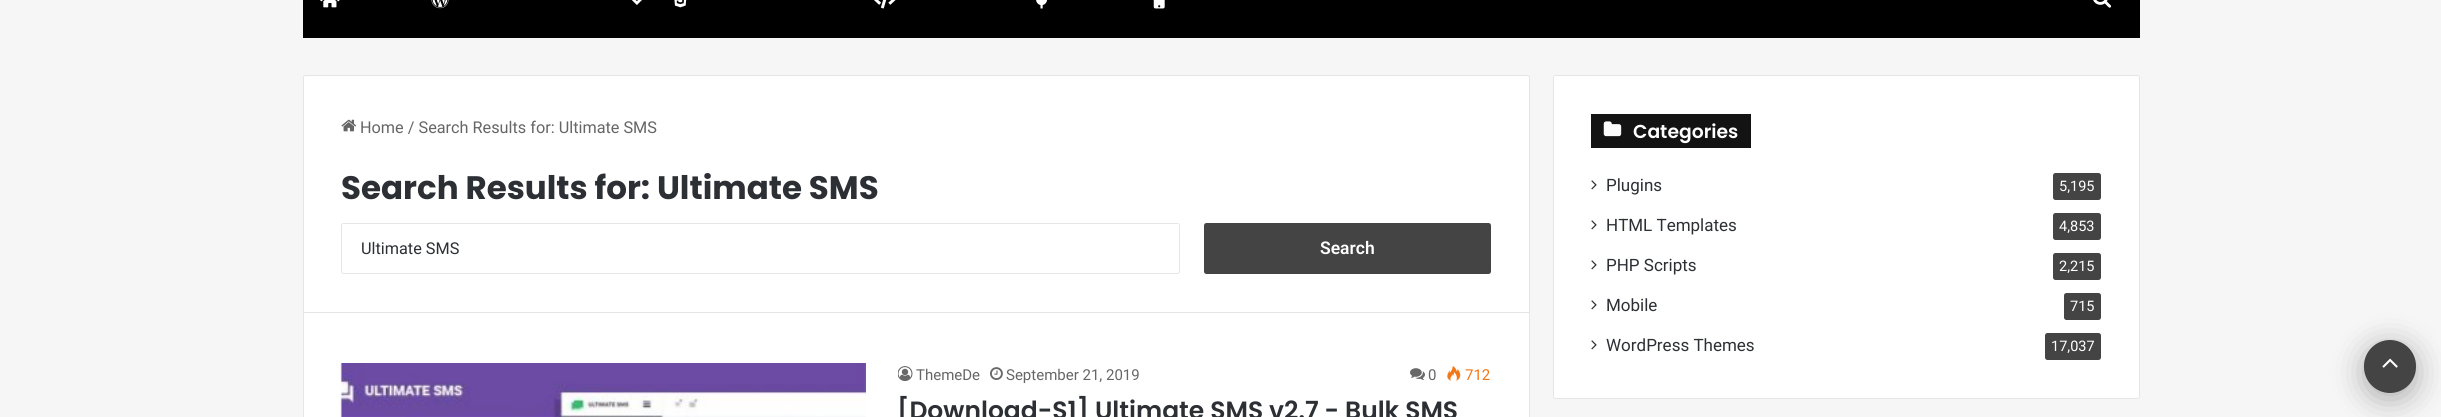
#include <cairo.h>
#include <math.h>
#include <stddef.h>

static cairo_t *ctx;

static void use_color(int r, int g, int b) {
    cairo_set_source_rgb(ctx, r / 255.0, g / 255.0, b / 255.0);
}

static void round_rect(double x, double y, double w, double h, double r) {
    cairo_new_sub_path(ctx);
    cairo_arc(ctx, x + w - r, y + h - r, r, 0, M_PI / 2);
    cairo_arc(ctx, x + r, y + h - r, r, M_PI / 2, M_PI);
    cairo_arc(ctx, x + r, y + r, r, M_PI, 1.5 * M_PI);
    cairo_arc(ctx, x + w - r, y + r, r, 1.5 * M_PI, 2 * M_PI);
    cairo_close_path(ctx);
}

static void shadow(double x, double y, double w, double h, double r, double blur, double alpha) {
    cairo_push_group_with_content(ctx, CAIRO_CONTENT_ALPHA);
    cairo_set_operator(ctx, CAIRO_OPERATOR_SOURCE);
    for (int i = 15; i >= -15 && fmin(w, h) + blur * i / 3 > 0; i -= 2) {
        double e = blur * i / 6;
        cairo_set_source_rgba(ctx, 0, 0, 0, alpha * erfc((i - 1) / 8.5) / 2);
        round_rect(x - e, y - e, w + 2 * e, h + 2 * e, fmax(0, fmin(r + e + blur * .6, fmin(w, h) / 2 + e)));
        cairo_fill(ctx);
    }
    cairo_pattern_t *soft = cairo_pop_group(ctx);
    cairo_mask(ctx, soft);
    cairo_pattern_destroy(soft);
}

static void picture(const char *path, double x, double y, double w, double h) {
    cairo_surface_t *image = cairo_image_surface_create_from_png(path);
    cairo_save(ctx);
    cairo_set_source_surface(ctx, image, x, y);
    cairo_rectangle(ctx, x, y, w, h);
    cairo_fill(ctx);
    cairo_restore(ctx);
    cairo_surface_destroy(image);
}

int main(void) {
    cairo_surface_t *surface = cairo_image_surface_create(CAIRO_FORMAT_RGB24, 2441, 417);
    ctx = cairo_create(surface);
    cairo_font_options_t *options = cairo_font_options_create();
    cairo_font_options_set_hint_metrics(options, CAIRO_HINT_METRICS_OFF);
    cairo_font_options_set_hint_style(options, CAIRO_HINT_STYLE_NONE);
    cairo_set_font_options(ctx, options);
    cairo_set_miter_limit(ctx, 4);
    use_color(246, 246, 246);
    cairo_paint(ctx);
    use_color(0, 0, 0);
    cairo_rectangle(ctx, 303, 0, 1837, 38);
    cairo_fill(ctx);
    picture("img1.png", 320, 0, 20, 8);
    picture("img2.png", 431, 0, 18, 9);
    picture("img3.png", 631, 0, 11, 5);
    picture("img4.png", 674, 0, 13, 8);
    picture("img5.png", 874, 0, 22, 9);
    picture("img6.png", 1036, 0, 11, 9);
    picture("img7.png", 1153, 0, 12, 9);
    picture("img8.png", 2093, 0, 19, 8);
    use_color(255, 255, 255);
    cairo_new_path(ctx);
    cairo_move_to(ctx, 305.5, 75.5);
    cairo_line_to(ctx, 1527.5, 75.5);
    cairo_curve_to(ctx, 1528.5, 75.5, 1529.5, 76.5, 1529.5, 77.5);
    cairo_line_to(ctx, 1529.5, 312.5);
    cairo_line_to(ctx, 303.5, 312.5);
    cairo_line_to(ctx, 303.5, 77.5);
    cairo_curve_to(ctx, 303.5, 76.5, 304.5, 75.5, 305.5, 75.5);
    cairo_close_path(ctx);
    cairo_fill_preserve(ctx);
    use_color(229, 229, 229);
    cairo_set_line_width(ctx, 1);
    cairo_stroke(ctx);
    picture("img9.png", 341, 119, 16, 13);
    cairo_select_font_face(ctx, "Roboto", CAIRO_FONT_SLANT_NORMAL, CAIRO_FONT_WEIGHT_NORMAL);
    cairo_set_font_size(ctx, 16.25);
    use_color(102, 102, 102);
    cairo_move_to(ctx, 360, 133);
    cairo_show_text(ctx, "Home / Search Results for: Ultimate SMS");
    cairo_select_font_face(ctx, "Poppins", CAIRO_FONT_SLANT_NORMAL, CAIRO_FONT_WEIGHT_BOLD);
    cairo_set_font_size(ctx, 32.5);
    use_color(44, 47, 52);
    cairo_move_to(ctx, 341, 199);
    cairo_show_text(ctx, "Search Results for: Ultimate SMS");
    round_rect(341.5, 223.5, 838, 50, 2);
    use_color(230, 230, 230);
    cairo_stroke(ctx);
    cairo_select_font_face(ctx, "Roboto", CAIRO_FONT_SLANT_NORMAL, CAIRO_FONT_WEIGHT_NORMAL);
    cairo_set_font_size(ctx, 16.25);
    use_color(44, 47, 52);
    cairo_move_to(ctx, 361, 254);
    cairo_show_text(ctx, "Ultimate SMS");
    use_color(68, 68, 68);
    round_rect(1204, 223, 287, 51, 2.5);
    cairo_fill(ctx);
    cairo_select_font_face(ctx, "Roboto SemiBold", CAIRO_FONT_SLANT_NORMAL, CAIRO_FONT_WEIGHT_NORMAL);
    cairo_set_font_size(ctx, 17.5);
    use_color(255, 255, 255);
    cairo_move_to(ctx, 1320, 254);
    cairo_show_text(ctx, "Search");
    cairo_rectangle(ctx, 304, 313, 1225, 104);
    cairo_fill(ctx);
    use_color(230, 230, 230);
    cairo_rectangle(ctx, 1529, 313, 1, 104);
    cairo_fill(ctx);
    cairo_rectangle(ctx, 303, 313, 1, 104);
    cairo_fill(ctx);
    picture("img10.png", 340, 363, 526, 54);
    picture("img11.png", 898, 366, 15, 15);
    cairo_select_font_face(ctx, "Roboto", CAIRO_FONT_SLANT_NORMAL, CAIRO_FONT_WEIGHT_NORMAL);
    cairo_set_font_size(ctx, 15);
    use_color(102, 102, 102);
    cairo_move_to(ctx, 916, 380);
    cairo_show_text(ctx, "ThemeDe");
    picture("img12.png", 990, 367, 13, 13);
    cairo_move_to(ctx, 1006, 380);
    cairo_show_text(ctx, "September 21, 2019");
    picture("img13.png", 1410, 368, 15, 12);
    cairo_move_to(ctx, 1428, 380);
    cairo_show_text(ctx, "0");
    picture("img14.png", 1447, 366, 14, 15);
    use_color(244, 118, 20);
    cairo_move_to(ctx, 1465, 380);
    cairo_show_text(ctx, "712");
    cairo_select_font_face(ctx, "Poppins SemiBold", CAIRO_FONT_SLANT_NORMAL, CAIRO_FONT_WEIGHT_NORMAL);
    cairo_set_font_size(ctx, 25);
    use_color(44, 47, 52);
    cairo_move_to(ctx, 897, 419);
    cairo_show_text(ctx, "[Download-S1] Ultimate SMS v2.7 - Bulk SMS");
    use_color(255, 255, 255);
    round_rect(1553.5, 75.5, 586, 323, 2);
    cairo_fill_preserve(ctx);
    use_color(229, 229, 229);
    cairo_stroke(ctx);
    use_color(19, 19, 19);
    cairo_rectangle(ctx, 1591, 114, 160, 34);
    cairo_fill(ctx);
    picture("img15.png", 1603, 121, 19, 16);
    cairo_set_font_size(ctx, 18.75);
    use_color(255, 255, 255);
    cairo_move_to(ctx, 1633, 138);
    cairo_show_text(ctx, "Categories");
    picture("img16.png", 1591, 180, 6, 10);
    cairo_select_font_face(ctx, "Roboto", CAIRO_FONT_SLANT_NORMAL, CAIRO_FONT_WEIGHT_NORMAL);
    cairo_set_font_size(ctx, 17);
    use_color(44, 47, 52);
    cairo_move_to(ctx, 1606, 191);
    cairo_show_text(ctx, "Plugins");
    use_color(68, 68, 68);
    round_rect(2053, 173, 48, 27, 2.5);
    cairo_fill(ctx);
    cairo_set_font_size(ctx, 14.5);
    use_color(255, 255, 255);
    cairo_move_to(ctx, 2059, 191);
    cairo_show_text(ctx, "5,195");
    picture("img16.png", 1591, 220, 6, 10);
    cairo_set_font_size(ctx, 17);
    use_color(44, 47, 52);
    cairo_move_to(ctx, 1606, 231);
    cairo_show_text(ctx, "HTML Templates");
    use_color(68, 68, 68);
    round_rect(2053, 213, 48, 27, 2.5);
    cairo_fill(ctx);
    cairo_set_font_size(ctx, 14.5);
    use_color(255, 255, 255);
    cairo_move_to(ctx, 2059, 231);
    cairo_show_text(ctx, "4,853");
    picture("img16.png", 1591, 260, 6, 10);
    cairo_set_font_size(ctx, 17);
    use_color(44, 47, 52);
    cairo_move_to(ctx, 1606, 271);
    cairo_show_text(ctx, "PHP Scripts");
    use_color(68, 68, 68);
    round_rect(2053, 253, 48, 27, 2.5);
    cairo_fill(ctx);
    cairo_set_font_size(ctx, 14.5);
    use_color(255, 255, 255);
    cairo_move_to(ctx, 2059, 271);
    cairo_show_text(ctx, "2,215");
    picture("img16.png", 1591, 300, 6, 10);
    cairo_set_font_size(ctx, 17);
    use_color(44, 47, 52);
    cairo_move_to(ctx, 1606, 311);
    cairo_show_text(ctx, "Mobile");
    use_color(68, 68, 68);
    round_rect(2064, 293, 37, 27, 2.5);
    cairo_fill(ctx);
    cairo_set_font_size(ctx, 14.5);
    use_color(255, 255, 255);
    cairo_move_to(ctx, 2070, 311);
    cairo_show_text(ctx, "715");
    picture("img16.png", 1591, 340, 6, 10);
    cairo_set_font_size(ctx, 17);
    use_color(44, 47, 52);
    cairo_move_to(ctx, 1606, 351);
    cairo_show_text(ctx, "WordPress Themes");
    use_color(68, 68, 68);
    round_rect(2045, 333, 56, 27, 2.5);
    cairo_fill(ctx);
    cairo_set_font_size(ctx, 14.5);
    use_color(255, 255, 255);
    cairo_move_to(ctx, 2051, 351);
    cairo_show_text(ctx, "17,037");
    use_color(0, 0, 0);
    shadow(2364, 346, 52, 53, 26, 15.5, 0.3);
    use_color(68, 68, 68);
    round_rect(2364, 340, 52, 53, 26);
    cairo_fill(ctx);
    picture("img17.png", 2382, 358, 16, 10);
    cairo_surface_write_to_png(surface, "result.png");
    cairo_font_options_destroy(options);
    cairo_destroy(ctx);
    cairo_surface_destroy(surface);
    return 0;
}
